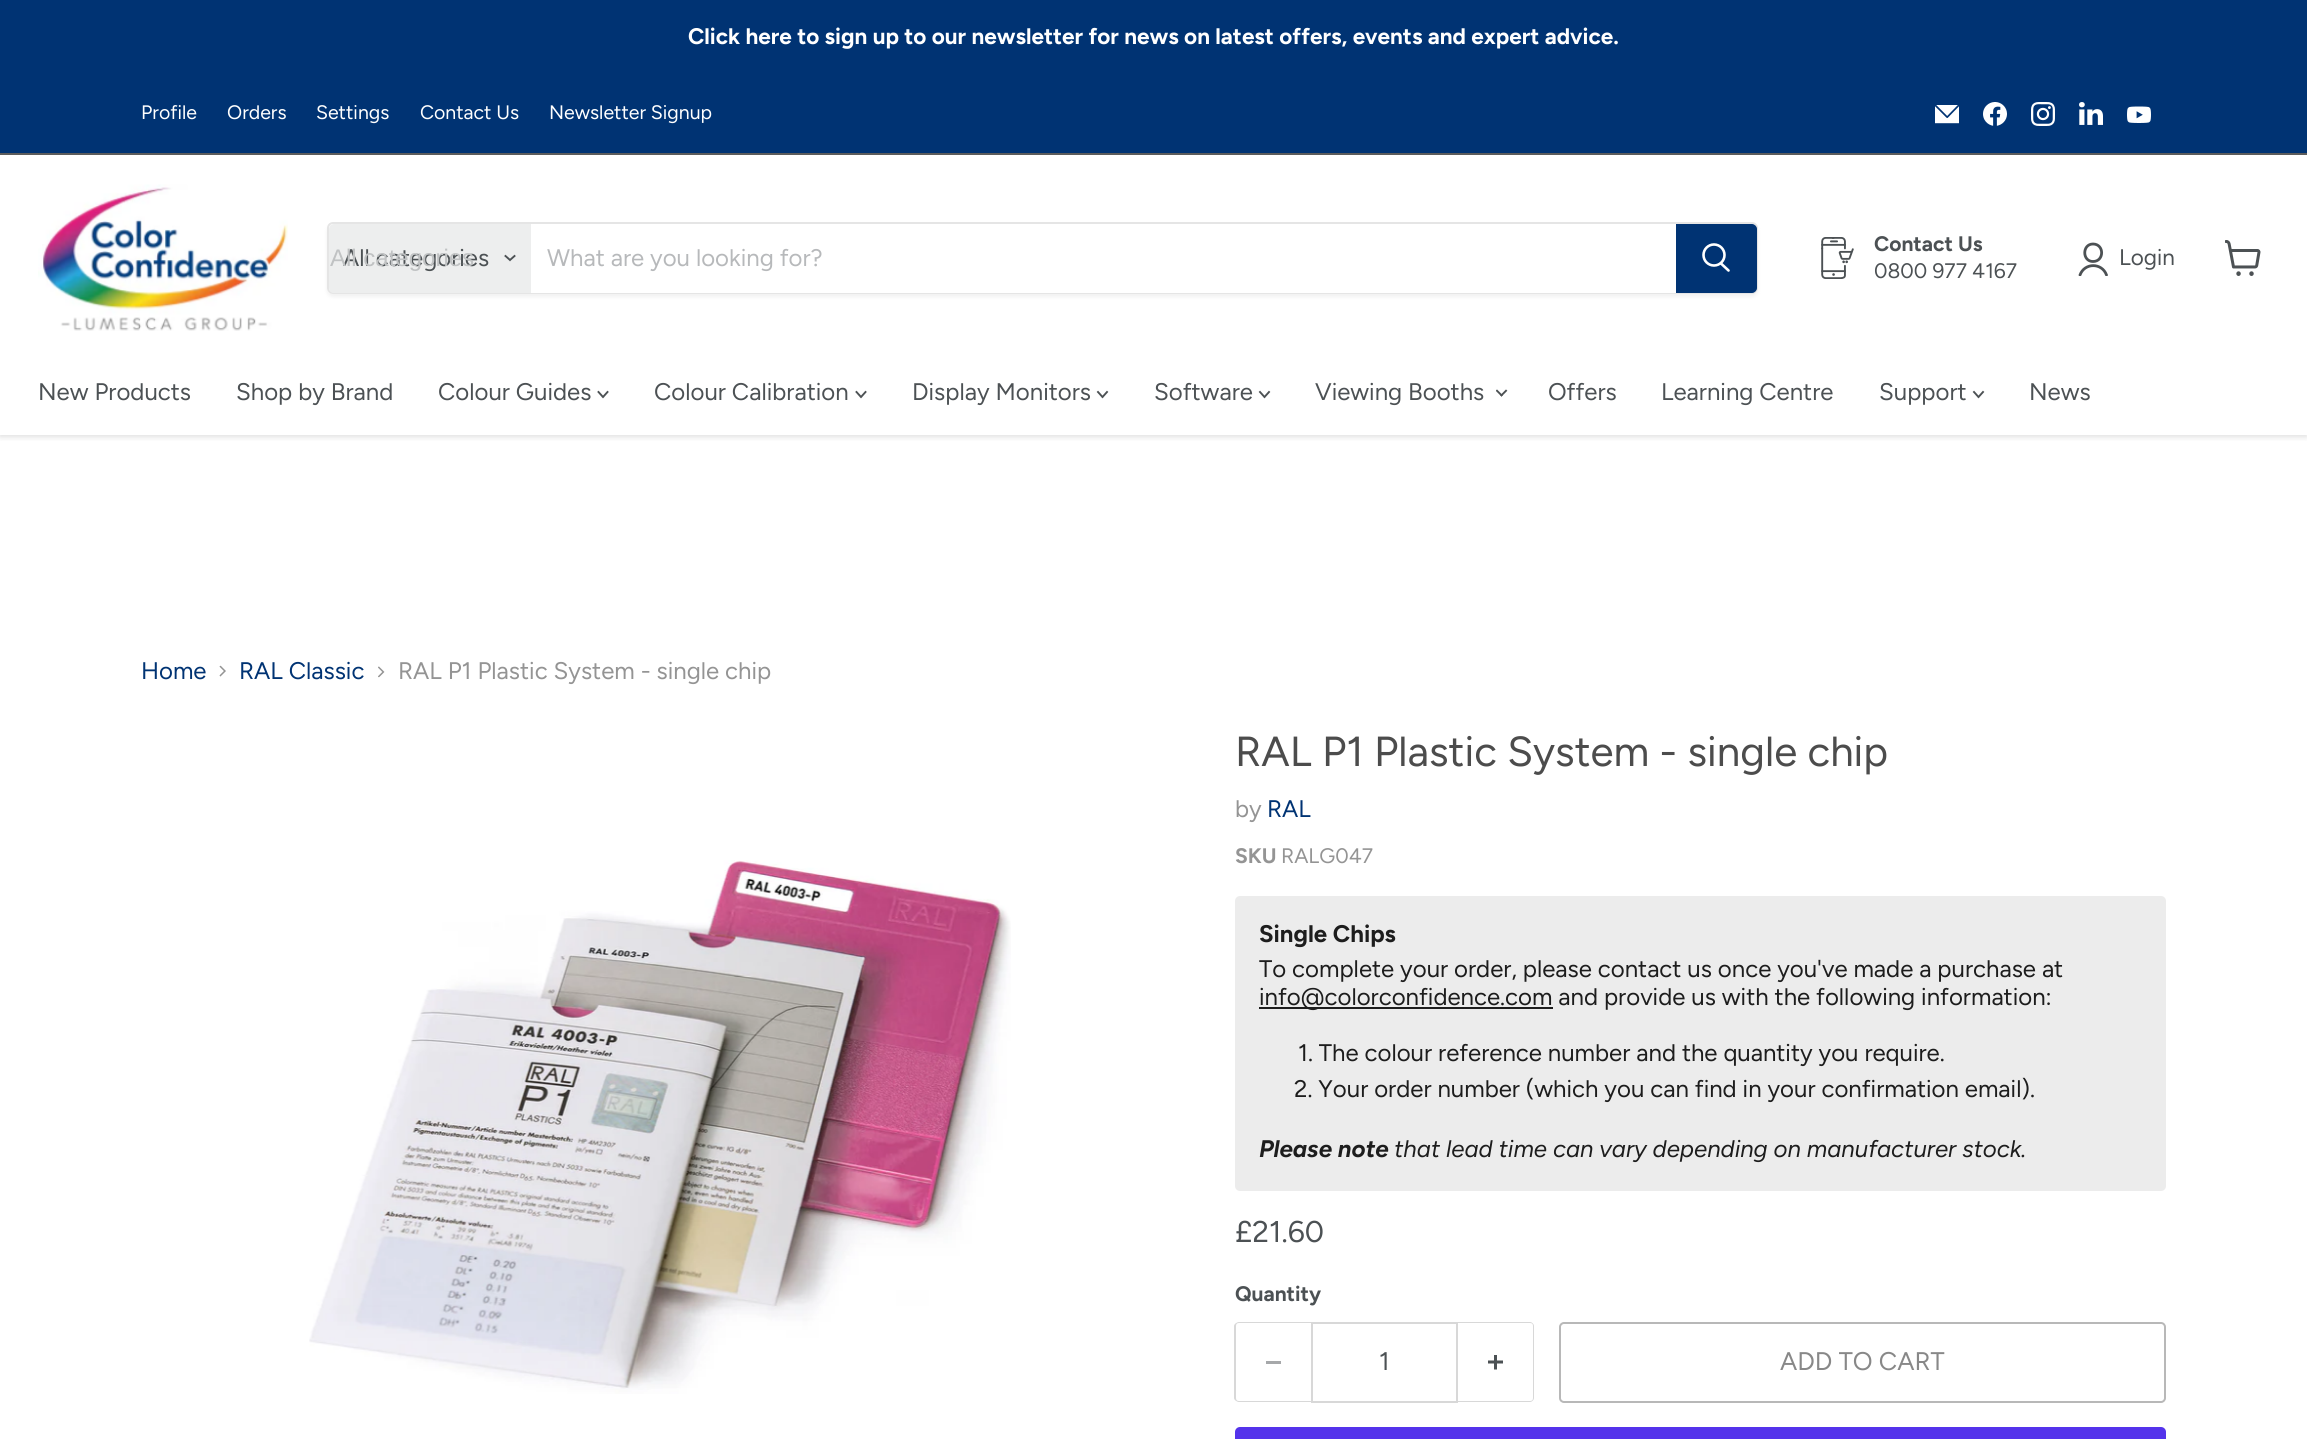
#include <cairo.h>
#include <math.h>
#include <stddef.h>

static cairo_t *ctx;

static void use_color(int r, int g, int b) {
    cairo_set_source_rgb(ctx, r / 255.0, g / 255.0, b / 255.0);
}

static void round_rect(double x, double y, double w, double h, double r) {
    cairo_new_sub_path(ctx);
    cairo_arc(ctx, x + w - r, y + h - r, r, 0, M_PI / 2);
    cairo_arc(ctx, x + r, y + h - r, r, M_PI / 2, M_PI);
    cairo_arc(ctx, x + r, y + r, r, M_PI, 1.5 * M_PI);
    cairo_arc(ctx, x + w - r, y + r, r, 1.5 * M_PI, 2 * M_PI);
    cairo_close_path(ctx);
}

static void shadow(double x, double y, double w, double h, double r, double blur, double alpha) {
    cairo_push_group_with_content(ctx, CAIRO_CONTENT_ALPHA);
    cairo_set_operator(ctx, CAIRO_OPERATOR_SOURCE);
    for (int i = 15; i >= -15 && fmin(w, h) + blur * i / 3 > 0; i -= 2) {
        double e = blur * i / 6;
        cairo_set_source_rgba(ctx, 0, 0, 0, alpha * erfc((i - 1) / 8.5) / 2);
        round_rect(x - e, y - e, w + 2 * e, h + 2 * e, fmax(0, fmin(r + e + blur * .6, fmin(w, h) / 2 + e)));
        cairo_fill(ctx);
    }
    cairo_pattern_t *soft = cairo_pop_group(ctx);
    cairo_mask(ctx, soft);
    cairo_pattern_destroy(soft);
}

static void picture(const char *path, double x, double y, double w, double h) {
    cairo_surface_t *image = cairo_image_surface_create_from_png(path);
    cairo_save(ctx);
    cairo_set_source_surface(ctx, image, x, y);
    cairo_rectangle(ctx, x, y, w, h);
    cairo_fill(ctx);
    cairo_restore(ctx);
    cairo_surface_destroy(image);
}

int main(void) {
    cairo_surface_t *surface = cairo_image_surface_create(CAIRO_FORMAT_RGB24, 2307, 1439);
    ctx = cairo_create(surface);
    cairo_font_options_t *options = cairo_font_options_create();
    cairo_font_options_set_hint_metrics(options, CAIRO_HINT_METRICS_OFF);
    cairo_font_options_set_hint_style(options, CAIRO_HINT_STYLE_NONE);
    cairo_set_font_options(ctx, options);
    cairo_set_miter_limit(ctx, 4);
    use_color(255, 255, 255);
    cairo_paint(ctx);
    cairo_save(ctx);
    cairo_rectangle(ctx, 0, 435, 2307, 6);
    cairo_clip(ctx);
    use_color(128, 128, 128);
    shadow(0, 156, 2307, 281, 0, 3, 0.25);
    cairo_restore(ctx);
    use_color(0, 51, 115);
    cairo_rectangle(ctx, 0, 0, 2307, 153);
    cairo_fill(ctx);
    cairo_select_font_face(ctx, "Figtree", CAIRO_FONT_SLANT_NORMAL, CAIRO_FONT_WEIGHT_BOLD);
    cairo_set_font_size(ctx, 22.5);
    use_color(255, 255, 255);
    cairo_move_to(ctx, 688, 44);
    cairo_show_text(ctx, "Click here to sign up to our newsletter for news on latest offers, events and expert advice.");
    use_color(92, 92, 92);
    cairo_rectangle(ctx, 0, 153, 2307, 2);
    cairo_fill(ctx);
    cairo_select_font_face(ctx, "Figtree", CAIRO_FONT_SLANT_NORMAL, CAIRO_FONT_WEIGHT_NORMAL);
    cairo_set_font_size(ctx, 19.5);
    use_color(255, 255, 255);
    cairo_move_to(ctx, 141, 119);
    cairo_show_text(ctx, "Profile");
    cairo_move_to(ctx, 227, 119);
    cairo_show_text(ctx, "Orders");
    cairo_move_to(ctx, 316, 119);
    cairo_show_text(ctx, "Settings");
    cairo_move_to(ctx, 420, 119);
    cairo_show_text(ctx, "Contact Us");
    cairo_move_to(ctx, 549, 119);
    cairo_show_text(ctx, "Newsletter Signup");
    picture("img1.png", 1935, 105, 24, 19);
    picture("img2.png", 1983, 102, 24, 24);
    picture("img3.png", 2031, 102, 24, 24);
    picture("img4.png", 2079, 102, 24, 23);
    picture("img5.png", 2127, 106, 24, 17);
    picture("img6.png", 38, 184, 250, 147);
    cairo_save(ctx);
    cairo_set_fill_rule(ctx, CAIRO_FILL_RULE_EVEN_ODD);
    cairo_new_path(ctx);
    cairo_move_to(ctx, 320, 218);
    cairo_line_to(ctx, 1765, 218);
    cairo_line_to(ctx, 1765, 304);
    cairo_line_to(ctx, 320, 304);
    cairo_close_path(ctx);
    cairo_move_to(ctx, 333, 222);
    cairo_line_to(ctx, 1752, 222);
    cairo_curve_to(ctx, 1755.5, 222, 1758, 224.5, 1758, 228);
    cairo_line_to(ctx, 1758, 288);
    cairo_curve_to(ctx, 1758, 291.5, 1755.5, 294, 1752, 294);
    cairo_line_to(ctx, 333, 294);
    cairo_curve_to(ctx, 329.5, 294, 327, 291.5, 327, 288);
    cairo_line_to(ctx, 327, 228);
    cairo_curve_to(ctx, 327, 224.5, 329.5, 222, 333, 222);
    cairo_close_path(ctx);
    cairo_clip(ctx);
    use_color(128, 128, 128);
    shadow(327, 225, 1431, 72, 6, 2, 0.11);
    cairo_restore(ctx);
    round_rect(328, 223, 1429, 70, 5);
    cairo_set_source_rgba(ctx, 0.502, 0.502, 0.502, 0.2);
    cairo_stroke(ctx);
    use_color(237, 238, 238);
    cairo_new_path(ctx);
    cairo_move_to(ctx, 334, 224);
    cairo_line_to(ctx, 531, 224);
    cairo_line_to(ctx, 531, 293);
    cairo_line_to(ctx, 334, 293);
    cairo_curve_to(ctx, 331, 293, 329, 291, 329, 288);
    cairo_line_to(ctx, 329, 229);
    cairo_curve_to(ctx, 329, 226, 331, 224, 334, 224);
    cairo_close_path(ctx);
    cairo_fill(ctx);
    cairo_set_font_size(ctx, 24);
    use_color(76, 81, 84);
    cairo_move_to(ctx, 343, 266);
    cairo_show_text(ctx, "All categories");
    cairo_select_font_face(ctx, "Liberation Sans", CAIRO_FONT_SLANT_NORMAL, CAIRO_FONT_WEIGHT_NORMAL);
    use_color(192, 194, 195);
    cairo_move_to(ctx, 330, 266);
    cairo_show_text(ctx, "All categories");
    cairo_new_path(ctx);
    cairo_move_to(ctx, 510, 260);
    cairo_line_to(ctx, 514.5, 256);
    cairo_move_to(ctx, 510, 260);
    cairo_line_to(ctx, 505.5, 256);
    use_color(76, 81, 84);
    cairo_set_line_width(ctx, 1.9);
    cairo_set_line_cap(ctx, CAIRO_LINE_CAP_SQUARE);
    cairo_stroke(ctx);
    use_color(255, 255, 255);
    cairo_rectangle(ctx, 531, 292, 1145, 1);
    cairo_fill(ctx);
    cairo_select_font_face(ctx, "Figtree", CAIRO_FONT_SLANT_NORMAL, CAIRO_FONT_WEIGHT_NORMAL);
    use_color(183, 185, 187);
    cairo_move_to(ctx, 547, 266);
    cairo_show_text(ctx, "What are you looking for?");
    use_color(0, 51, 115);
    cairo_new_path(ctx);
    cairo_move_to(ctx, 1677, 225);
    cairo_line_to(ctx, 1752, 225);
    cairo_curve_to(ctx, 1754, 225, 1756, 227, 1756, 229);
    cairo_line_to(ctx, 1756, 288);
    cairo_curve_to(ctx, 1756, 290, 1754, 292, 1752, 292);
    cairo_line_to(ctx, 1677, 292);
    cairo_close_path(ctx);
    cairo_fill_preserve(ctx);
    cairo_set_line_width(ctx, 2);
    cairo_set_line_cap(ctx, CAIRO_LINE_CAP_BUTT);
    cairo_stroke(ctx);
    cairo_new_path(ctx);
    cairo_move_to(ctx, 1728.5, 270.5);
    cairo_line_to(ctx, 1721, 263.5);
    use_color(255, 255, 255);
    cairo_set_line_width(ctx, 2.6);
    cairo_set_line_cap(ctx, CAIRO_LINE_CAP_ROUND);
    cairo_stroke(ctx);
    cairo_arc(ctx, 1714, 255, 10.5, 0, 2 * M_PI);
    cairo_set_line_cap(ctx, CAIRO_LINE_CAP_BUTT);
    cairo_stroke(ctx);
    picture("img7.png", 1821, 237, 33, 42);
    cairo_select_font_face(ctx, "Figtree", CAIRO_FONT_SLANT_NORMAL, CAIRO_FONT_WEIGHT_BOLD);
    cairo_set_font_size(ctx, 21);
    use_color(76, 81, 84);
    cairo_move_to(ctx, 1874, 251);
    cairo_show_text(ctx, "Contact Us");
    cairo_select_font_face(ctx, "Figtree", CAIRO_FONT_SLANT_NORMAL, CAIRO_FONT_WEIGHT_NORMAL);
    cairo_move_to(ctx, 1874, 278);
    cairo_show_text(ctx, "0800 977 4167");
    cairo_new_path(ctx);
    cairo_move_to(ctx, 2093, 261.5);
    cairo_curve_to(ctx, 2104.5, 261.5, 2104.5, 244, 2093, 244);
    cairo_curve_to(ctx, 2082, 244, 2082, 261.5, 2093, 261.5);
    cairo_close_path(ctx);
    cairo_set_line_width(ctx, 2.8);
    cairo_set_line_cap(ctx, CAIRO_LINE_CAP_ROUND);
    cairo_set_line_join(ctx, CAIRO_LINE_JOIN_ROUND);
    cairo_stroke(ctx);
    cairo_save(ctx);
    cairo_rectangle(ctx, 2078, 242, 30, 34);
    cairo_clip(ctx);
    cairo_new_path(ctx);
    cairo_move_to(ctx, 2106.5, 275);
    cairo_curve_to(ctx, 2102, 262.5, 2084.5, 262.5, 2080, 275);
    cairo_stroke(ctx);
    cairo_restore(ctx);
    cairo_set_font_size(ctx, 22.5);
    cairo_move_to(ctx, 2119, 265);
    cairo_show_text(ctx, "Login");
    picture("img8.png", 2225, 240, 36, 36);
    cairo_set_font_size(ctx, 24);
    cairo_move_to(ctx, 38, 400);
    cairo_show_text(ctx, "New Products");
    cairo_move_to(ctx, 236, 400);
    cairo_show_text(ctx, "Shop by Brand");
    cairo_move_to(ctx, 438, 400);
    cairo_show_text(ctx, "Colour Guides");
    cairo_new_path(ctx);
    cairo_move_to(ctx, 603, 397);
    cairo_line_to(ctx, 607.5, 392);
    cairo_move_to(ctx, 603, 397);
    cairo_line_to(ctx, 598.5, 392);
    cairo_set_line_width(ctx, 1.9);
    cairo_set_line_cap(ctx, CAIRO_LINE_CAP_SQUARE);
    cairo_set_line_join(ctx, CAIRO_LINE_JOIN_MITER);
    cairo_stroke(ctx);
    cairo_move_to(ctx, 654, 400);
    cairo_show_text(ctx, "Colour Calibration");
    cairo_new_path(ctx);
    cairo_move_to(ctx, 861, 397);
    cairo_line_to(ctx, 865.5, 392);
    cairo_move_to(ctx, 861, 397);
    cairo_line_to(ctx, 856.5, 392);
    cairo_stroke(ctx);
    cairo_move_to(ctx, 912, 400);
    cairo_show_text(ctx, "Display Monitors");
    cairo_new_path(ctx);
    cairo_move_to(ctx, 1102.5, 397);
    cairo_line_to(ctx, 1107, 392);
    cairo_move_to(ctx, 1102.5, 397);
    cairo_line_to(ctx, 1098, 392);
    cairo_stroke(ctx);
    cairo_move_to(ctx, 1154, 400);
    cairo_show_text(ctx, "Software");
    cairo_new_path(ctx);
    cairo_move_to(ctx, 1264.5, 397);
    cairo_line_to(ctx, 1269, 392);
    cairo_move_to(ctx, 1264.5, 397);
    cairo_line_to(ctx, 1260, 392);
    cairo_stroke(ctx);
    cairo_move_to(ctx, 1315, 400);
    cairo_show_text(ctx, "Viewing Booths");
    picture("img9.png", 1496, 389, 12, 8);
    cairo_move_to(ctx, 1548, 400);
    cairo_show_text(ctx, "Offers");
    cairo_move_to(ctx, 1661, 400);
    cairo_show_text(ctx, "Learning Centre");
    cairo_move_to(ctx, 1879, 400);
    cairo_show_text(ctx, "Support");
    cairo_new_path(ctx);
    cairo_move_to(ctx, 1978.5, 397);
    cairo_line_to(ctx, 1983, 392);
    cairo_move_to(ctx, 1978.5, 397);
    cairo_line_to(ctx, 1974, 392);
    cairo_stroke(ctx);
    cairo_move_to(ctx, 2029, 400);
    cairo_show_text(ctx, "News");
    use_color(0, 51, 115);
    cairo_move_to(ctx, 141, 679);
    cairo_show_text(ctx, "Home");
    picture("img10.png", 219, 665, 7, 12);
    cairo_move_to(ctx, 239, 679);
    cairo_show_text(ctx, "RAL Classic");
    picture("img11.png", 378, 666, 7, 12);
    use_color(148, 148, 148);
    cairo_move_to(ctx, 398, 679);
    cairo_show_text(ctx, "RAL P1 Plastic System - single chip");
    picture("img12.png", 309, 860, 702, 534);
    cairo_set_font_size(ctx, 42);
    use_color(76, 76, 76);
    cairo_move_to(ctx, 1235, 766);
    cairo_show_text(ctx, "RAL P1 Plastic System - single chip");
    cairo_set_font_size(ctx, 24);
    use_color(148, 148, 148);
    cairo_move_to(ctx, 1235, 817);
    cairo_show_text(ctx, "by");
    use_color(0, 51, 115);
    cairo_move_to(ctx, 1267, 817);
    cairo_show_text(ctx, "RAL");
    cairo_select_font_face(ctx, "Figtree", CAIRO_FONT_SLANT_NORMAL, CAIRO_FONT_WEIGHT_BOLD);
    cairo_set_font_size(ctx, 21);
    use_color(148, 148, 148);
    cairo_move_to(ctx, 1235, 863);
    cairo_show_text(ctx, "SKU");
    cairo_select_font_face(ctx, "Figtree", CAIRO_FONT_SLANT_NORMAL, CAIRO_FONT_WEIGHT_NORMAL);
    cairo_move_to(ctx, 1281, 863);
    cairo_show_text(ctx, "RALG047");
    use_color(236, 236, 236);
    round_rect(1235, 896, 931, 295, 5);
    cairo_fill(ctx);
    cairo_select_font_face(ctx, "Figtree", CAIRO_FONT_SLANT_NORMAL, CAIRO_FONT_WEIGHT_BOLD);
    cairo_set_font_size(ctx, 24);
    use_color(29, 29, 29);
    cairo_move_to(ctx, 1259, 942);
    cairo_show_text(ctx, "Single Chips");
    cairo_select_font_face(ctx, "Figtree", CAIRO_FONT_SLANT_NORMAL, CAIRO_FONT_WEIGHT_NORMAL);
    cairo_move_to(ctx, 1259, 977);
    cairo_show_text(ctx, "To complete your order, please contact us once you've made a purchase at");
    cairo_rectangle(ctx, 1259, 1007, 294, 2);
    cairo_fill(ctx);
    cairo_move_to(ctx, 1259, 1005);
    cairo_show_text(ctx, "info@colorconfidence.com and provide us with the following information:");
    cairo_move_to(ctx, 1298, 1061);
    cairo_show_text(ctx, "1. The colour reference number and the quantity you require.");
    cairo_move_to(ctx, 1294, 1097);
    cairo_show_text(ctx, "2. Your order number (which you can find in your confirmation email).");
    cairo_select_font_face(ctx, "Figtree", CAIRO_FONT_SLANT_ITALIC, CAIRO_FONT_WEIGHT_BOLD);
    cairo_move_to(ctx, 1259, 1157);
    cairo_show_text(ctx, "Please note");
    cairo_select_font_face(ctx, "Figtree", CAIRO_FONT_SLANT_ITALIC, CAIRO_FONT_WEIGHT_NORMAL);
    cairo_move_to(ctx, 1394, 1157);
    cairo_show_text(ctx, "that lead time can vary depending on manufacturer stock.");
    cairo_select_font_face(ctx, "Figtree", CAIRO_FONT_SLANT_NORMAL, CAIRO_FONT_WEIGHT_NORMAL);
    cairo_set_font_size(ctx, 30);
    use_color(76, 81, 84);
    cairo_move_to(ctx, 1235, 1242);
    cairo_show_text(ctx, "£21.60");
    cairo_select_font_face(ctx, "Figtree", CAIRO_FONT_SLANT_NORMAL, CAIRO_FONT_WEIGHT_BOLD);
    cairo_set_font_size(ctx, 21);
    cairo_move_to(ctx, 1235, 1301);
    cairo_show_text(ctx, "Quantity");
    use_color(216, 216, 216);
    cairo_set_fill_rule(ctx, CAIRO_FILL_RULE_EVEN_ODD);
    cairo_new_path(ctx);
    cairo_move_to(ctx, 1239, 1322);
    cairo_line_to(ctx, 1311, 1322);
    cairo_line_to(ctx, 1311, 1402);
    cairo_line_to(ctx, 1239, 1402);
    cairo_curve_to(ctx, 1237, 1402, 1234, 1400, 1234, 1398);
    cairo_line_to(ctx, 1234, 1326);
    cairo_curve_to(ctx, 1234, 1324, 1237, 1322, 1239, 1322);
    cairo_close_path(ctx);
    cairo_move_to(ctx, 1239, 1323);
    cairo_line_to(ctx, 1311, 1323);
    cairo_line_to(ctx, 1311, 1401);
    cairo_line_to(ctx, 1239, 1401);
    cairo_curve_to(ctx, 1237, 1401, 1236, 1400, 1236, 1398);
    cairo_line_to(ctx, 1236, 1326);
    cairo_curve_to(ctx, 1236, 1324, 1237, 1323, 1239, 1323);
    cairo_close_path(ctx);
    cairo_fill(ctx);
    use_color(166, 168, 170);
    cairo_rectangle(ctx, 1266, 1361, 15, 3);
    cairo_fill(ctx);
    cairo_rectangle(ctx, 1312, 1323, 145, 79);
    use_color(216, 216, 216);
    cairo_set_line_width(ctx, 2);
    cairo_set_line_cap(ctx, CAIRO_LINE_CAP_BUTT);
    cairo_stroke(ctx);
    cairo_select_font_face(ctx, "Figtree", CAIRO_FONT_SLANT_NORMAL, CAIRO_FONT_WEIGHT_NORMAL);
    cairo_set_font_size(ctx, 25.5);
    use_color(76, 81, 84);
    cairo_move_to(ctx, 1379, 1370);
    cairo_show_text(ctx, "1");
    use_color(216, 216, 216);
    cairo_new_path(ctx);
    cairo_move_to(ctx, 1458, 1322);
    cairo_line_to(ctx, 1530, 1322);
    cairo_curve_to(ctx, 1532, 1322, 1534, 1324, 1534, 1326);
    cairo_line_to(ctx, 1534, 1398);
    cairo_curve_to(ctx, 1534, 1400, 1532, 1402, 1530, 1402);
    cairo_line_to(ctx, 1458, 1402);
    cairo_close_path(ctx);
    cairo_move_to(ctx, 1458, 1323);
    cairo_line_to(ctx, 1530, 1323);
    cairo_curve_to(ctx, 1532, 1323, 1533, 1324, 1533, 1326);
    cairo_line_to(ctx, 1533, 1398);
    cairo_curve_to(ctx, 1533, 1400, 1532, 1401, 1530, 1401);
    cairo_line_to(ctx, 1458, 1401);
    cairo_close_path(ctx);
    cairo_fill(ctx);
    picture("img13.png", 1488, 1355, 15, 15);
    round_rect(1560, 1323, 605, 79, 4);
    use_color(184, 184, 184);
    cairo_stroke(ctx);
    use_color(136, 136, 136);
    cairo_move_to(ctx, 1780, 1370);
    cairo_show_text(ctx, "ADD TO CART");
    use_color(84, 51, 235);
    round_rect(1235, 1427, 931, 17, 5);
    cairo_fill(ctx);
    cairo_surface_write_to_png(surface, "result.png");
    cairo_font_options_destroy(options);
    cairo_destroy(ctx);
    cairo_surface_destroy(surface);
    return 0;
}
